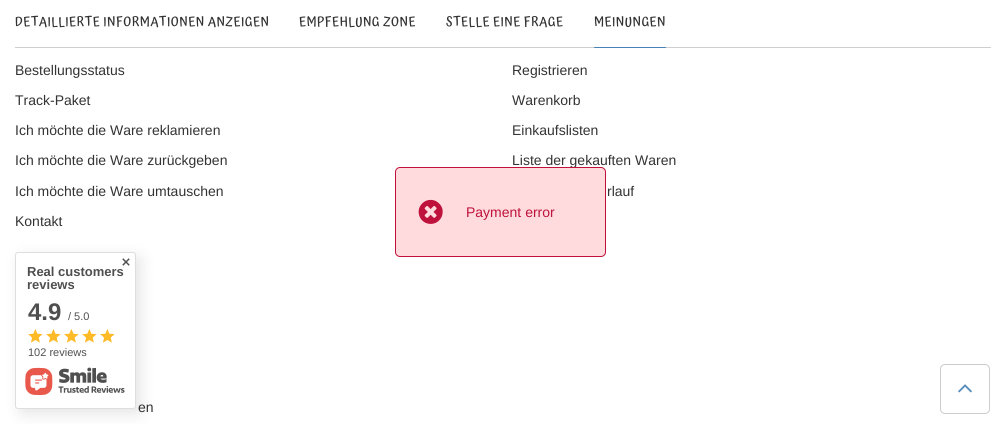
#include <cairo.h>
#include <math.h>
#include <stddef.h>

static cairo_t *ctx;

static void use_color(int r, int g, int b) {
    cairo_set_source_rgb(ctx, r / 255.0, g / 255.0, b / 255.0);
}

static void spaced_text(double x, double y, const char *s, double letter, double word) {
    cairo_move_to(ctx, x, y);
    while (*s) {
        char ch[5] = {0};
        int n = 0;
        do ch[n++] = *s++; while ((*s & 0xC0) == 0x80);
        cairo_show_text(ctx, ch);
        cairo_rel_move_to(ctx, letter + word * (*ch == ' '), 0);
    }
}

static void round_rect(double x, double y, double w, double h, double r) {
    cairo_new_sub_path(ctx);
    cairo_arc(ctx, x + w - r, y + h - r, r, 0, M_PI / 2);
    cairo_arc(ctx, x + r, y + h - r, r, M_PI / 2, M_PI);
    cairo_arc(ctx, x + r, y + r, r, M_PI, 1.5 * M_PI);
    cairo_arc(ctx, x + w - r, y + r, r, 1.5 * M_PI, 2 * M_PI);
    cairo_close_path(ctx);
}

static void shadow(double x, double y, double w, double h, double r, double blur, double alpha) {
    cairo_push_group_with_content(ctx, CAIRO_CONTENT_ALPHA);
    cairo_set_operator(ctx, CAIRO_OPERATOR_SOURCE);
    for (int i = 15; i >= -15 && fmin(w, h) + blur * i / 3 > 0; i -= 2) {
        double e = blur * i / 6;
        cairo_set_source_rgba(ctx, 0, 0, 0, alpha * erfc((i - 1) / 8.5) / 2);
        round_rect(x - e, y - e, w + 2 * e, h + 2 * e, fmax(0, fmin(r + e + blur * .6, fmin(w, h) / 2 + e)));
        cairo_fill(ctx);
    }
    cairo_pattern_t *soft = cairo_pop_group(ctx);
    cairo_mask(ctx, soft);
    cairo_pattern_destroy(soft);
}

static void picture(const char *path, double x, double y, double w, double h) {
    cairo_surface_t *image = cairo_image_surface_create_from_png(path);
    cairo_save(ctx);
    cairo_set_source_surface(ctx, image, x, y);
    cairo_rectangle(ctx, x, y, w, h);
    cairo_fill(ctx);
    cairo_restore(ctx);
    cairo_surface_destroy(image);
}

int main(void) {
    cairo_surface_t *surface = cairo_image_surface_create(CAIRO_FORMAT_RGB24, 1000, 424);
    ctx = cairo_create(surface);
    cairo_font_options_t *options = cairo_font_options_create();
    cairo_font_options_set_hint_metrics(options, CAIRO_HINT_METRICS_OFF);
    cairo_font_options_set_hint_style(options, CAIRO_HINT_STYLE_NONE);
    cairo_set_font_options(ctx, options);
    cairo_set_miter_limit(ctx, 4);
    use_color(255, 255, 255);
    cairo_paint(ctx);
    use_color(207, 207, 207);
    cairo_rectangle(ctx, 15, 47, 976, 1);
    cairo_fill(ctx);
    cairo_select_font_face(ctx, "Atma Medium", CAIRO_FONT_SLANT_NORMAL, CAIRO_FONT_WEIGHT_NORMAL);
    cairo_set_font_size(ctx, 13);
    use_color(51, 51, 51);
    spaced_text(15, 26, "DETAILLIERTE INFORMATIONEN ANZEIGEN", 0.5, 0);
    spaced_text(299, 26, "EMPFEHLUNG ZONE", 0.5, 0);
    spaced_text(446, 26, "STELLE EINE FRAGE", 0.5, 0);
    spaced_text(594, 26, "MEINUNGEN", 0.5, 0);
    use_color(70, 130, 180);
    round_rect(594, 47, 72, 1, 0.5);
    cairo_fill(ctx);
    cairo_select_font_face(ctx, "Liberation Sans", CAIRO_FONT_SLANT_NORMAL, CAIRO_FONT_WEIGHT_NORMAL);
    cairo_set_font_size(ctx, 14);
    use_color(51, 51, 51);
    cairo_move_to(ctx, 15, 75);
    cairo_show_text(ctx, "Bestellungsstatus");
    cairo_move_to(ctx, 15, 105);
    cairo_show_text(ctx, "Track-Paket");
    cairo_move_to(ctx, 15, 135);
    cairo_show_text(ctx, "Ich möchte die Ware reklamieren");
    cairo_move_to(ctx, 15, 165);
    cairo_show_text(ctx, "Ich möchte die Ware zurückgeben");
    cairo_move_to(ctx, 15, 196);
    cairo_show_text(ctx, "Ich möchte die Ware umtauschen");
    cairo_move_to(ctx, 15, 226);
    cairo_show_text(ctx, "Kontakt");
    cairo_move_to(ctx, 512, 75);
    cairo_show_text(ctx, "Registrieren");
    cairo_move_to(ctx, 512, 105);
    cairo_show_text(ctx, "Warenkorb");
    cairo_move_to(ctx, 512, 135);
    cairo_show_text(ctx, "Einkaufslisten");
    cairo_move_to(ctx, 512, 165);
    cairo_show_text(ctx, "Liste der gekauften Waren");
    cairo_move_to(ctx, 607, 196);
    cairo_show_text(ctx, "rlauf");
    cairo_move_to(ctx, 138, 412);
    cairo_show_text(ctx, "en");
    use_color(255, 219, 221);
    round_rect(395.5, 167.5, 210, 89, 4.5);
    cairo_fill_preserve(ctx);
    use_color(190, 18, 60);
    cairo_set_line_width(ctx, 1);
    cairo_stroke(ctx);
    picture("img1.png", 418, 199, 25, 25);
    cairo_move_to(ctx, 466, 217);
    cairo_show_text(ctx, "Payment error");
    use_color(0, 0, 0);
    shadow(20, 257, 121, 157, 3, 7.5, 0.1);
    use_color(255, 255, 255);
    round_rect(15.5, 252.5, 120, 156, 2.5);
    cairo_fill_preserve(ctx);
    use_color(222, 222, 222);
    cairo_stroke(ctx);
    picture("img2.png", 122, 258, 8, 8);
    cairo_select_font_face(ctx, "Liberation Sans", CAIRO_FONT_SLANT_NORMAL, CAIRO_FONT_WEIGHT_BOLD);
    cairo_set_font_size(ctx, 13);
    use_color(79, 79, 79);
    cairo_move_to(ctx, 27, 276);
    cairo_show_text(ctx, "Real customers");
    cairo_move_to(ctx, 27, 289);
    cairo_show_text(ctx, "reviews");
    cairo_set_font_size(ctx, 24);
    cairo_move_to(ctx, 28, 320);
    cairo_show_text(ctx, "4.9");
    cairo_select_font_face(ctx, "Liberation Sans", CAIRO_FONT_SLANT_NORMAL, CAIRO_FONT_WEIGHT_NORMAL);
    cairo_set_font_size(ctx, 11);
    cairo_move_to(ctx, 68, 320);
    cairo_show_text(ctx, "/ 5.0");
    picture("img3.png", 28, 329, 15, 14);
    picture("img3.png", 46, 329, 15, 14);
    picture("img3.png", 64, 329, 15, 14);
    picture("img3.png", 82, 329, 15, 14);
    picture("img3.png", 100, 329, 15, 14);
    cairo_move_to(ctx, 28, 356);
    cairo_show_text(ctx, "102 reviews");
    picture("img4.png", 25, 367, 100, 28);
    round_rect(940.5, 364.5, 49, 49, 4.5);
    use_color(202, 205, 206);
    cairo_stroke(ctx);
    picture("img5.png", 958, 384, 14, 9);
    cairo_surface_write_to_png(surface, "result.png");
    cairo_font_options_destroy(options);
    cairo_destroy(ctx);
    cairo_surface_destroy(surface);
    return 0;
}
